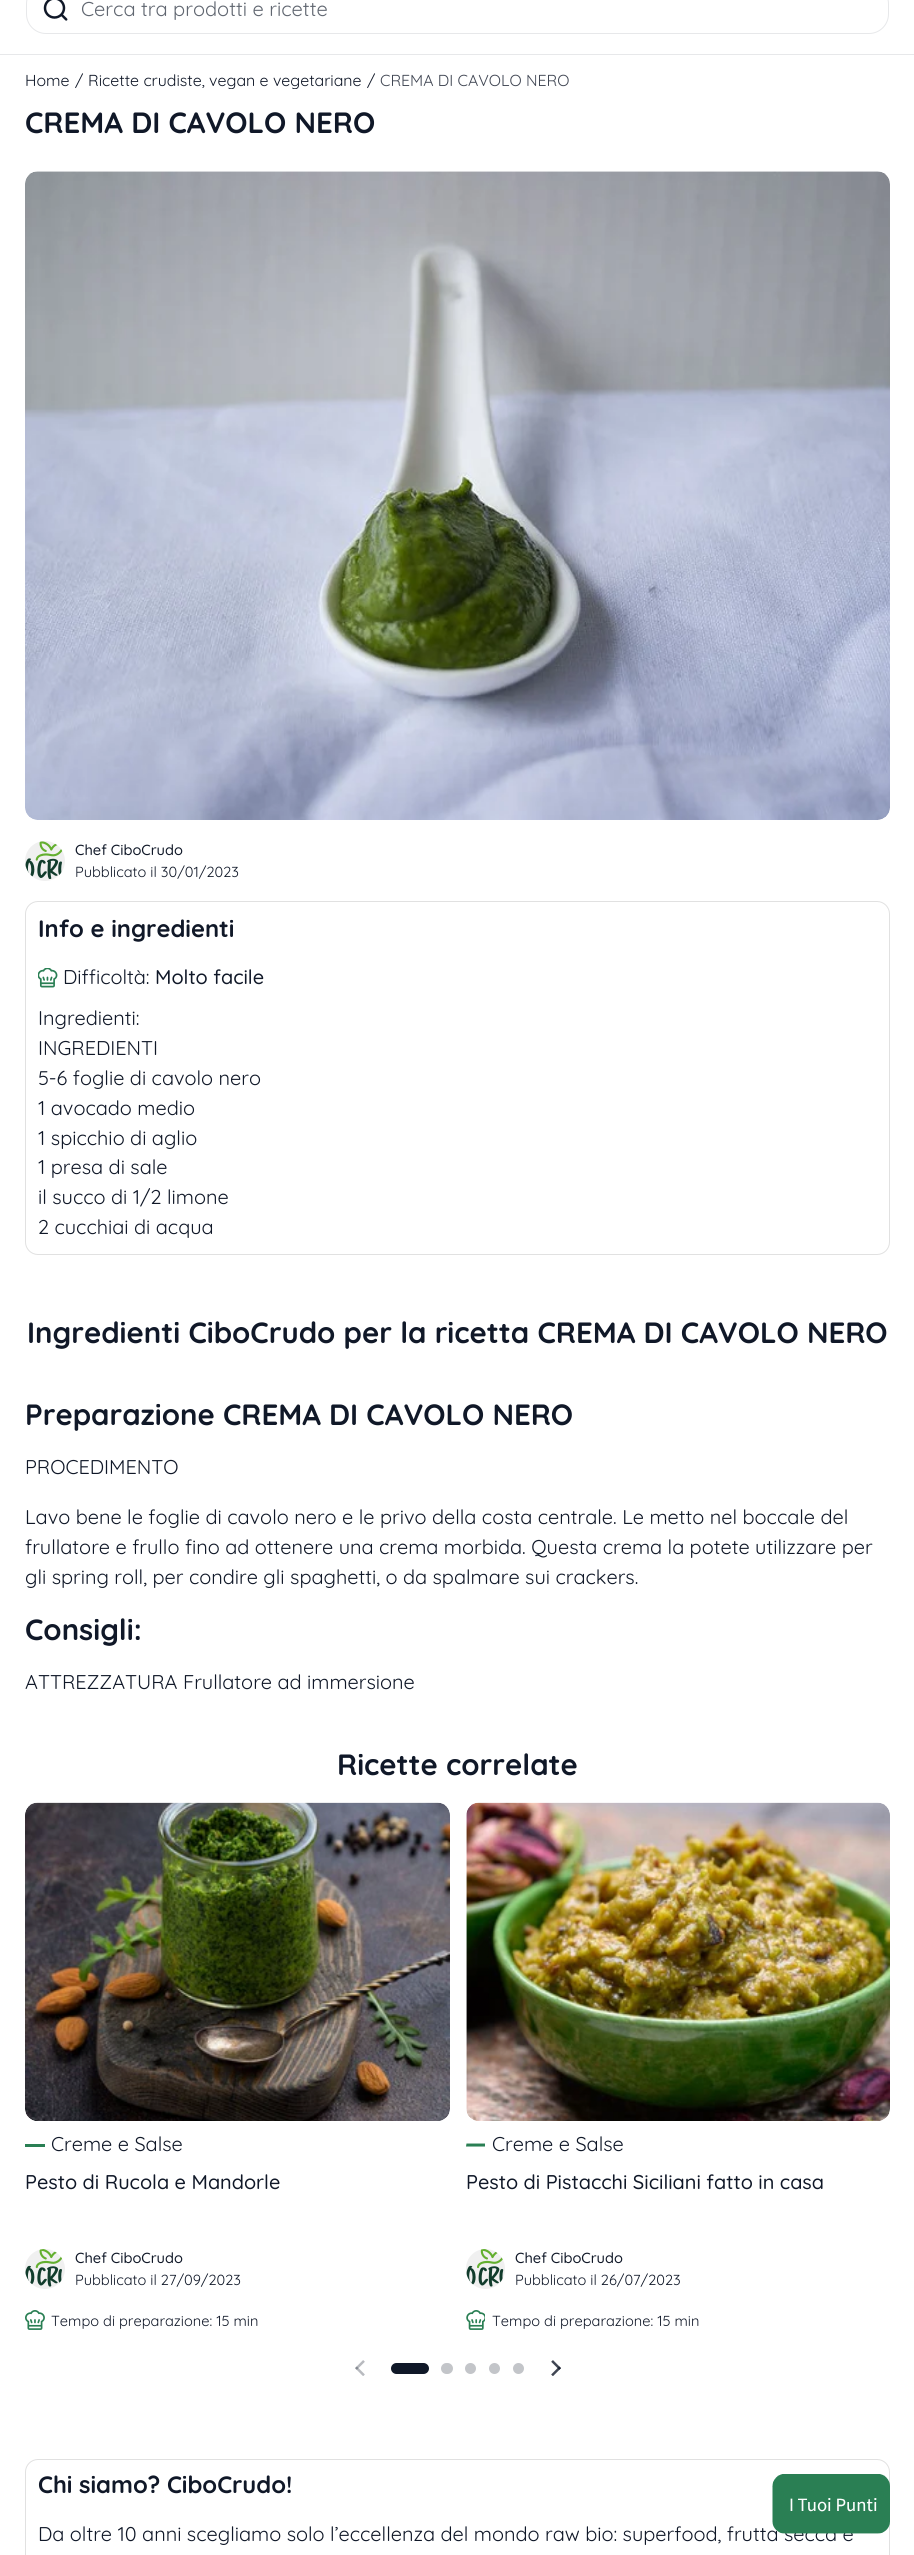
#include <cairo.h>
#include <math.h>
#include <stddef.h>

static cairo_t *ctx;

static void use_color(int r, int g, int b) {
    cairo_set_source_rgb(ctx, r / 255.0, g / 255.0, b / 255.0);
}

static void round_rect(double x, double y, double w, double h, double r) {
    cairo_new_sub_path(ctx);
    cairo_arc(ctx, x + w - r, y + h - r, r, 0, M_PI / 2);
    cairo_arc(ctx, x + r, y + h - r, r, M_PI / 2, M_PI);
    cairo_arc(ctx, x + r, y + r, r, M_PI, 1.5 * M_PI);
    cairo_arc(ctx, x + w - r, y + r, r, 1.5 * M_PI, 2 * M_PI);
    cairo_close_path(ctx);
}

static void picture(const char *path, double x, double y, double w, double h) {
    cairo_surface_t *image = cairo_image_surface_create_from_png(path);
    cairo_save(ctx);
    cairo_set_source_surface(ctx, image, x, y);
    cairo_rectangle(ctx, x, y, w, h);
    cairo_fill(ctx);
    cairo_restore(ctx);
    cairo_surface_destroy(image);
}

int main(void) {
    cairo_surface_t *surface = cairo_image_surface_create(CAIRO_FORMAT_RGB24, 914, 2555);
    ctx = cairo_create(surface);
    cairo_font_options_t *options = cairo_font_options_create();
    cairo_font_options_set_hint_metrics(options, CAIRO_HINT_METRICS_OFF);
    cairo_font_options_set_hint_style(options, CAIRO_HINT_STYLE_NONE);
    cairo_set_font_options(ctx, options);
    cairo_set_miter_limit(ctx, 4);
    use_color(255, 255, 255);
    cairo_paint(ctx);
    use_color(231, 232, 234);
    cairo_rectangle(ctx, 0, 54, 914, 1);
    cairo_fill(ctx);
    round_rect(26.5, -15.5, 862, 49, 19.5);
    cairo_set_line_width(ctx, 1);
    cairo_stroke(ctx);
    picture("img1.png", 43, 0, 25, 21);
    cairo_select_font_face(ctx, "Quicksand", CAIRO_FONT_SLANT_NORMAL, CAIRO_FONT_WEIGHT_NORMAL);
    cairo_set_font_size(ctx, 20);
    use_color(97, 103, 113);
    cairo_move_to(ctx, 81, 16);
    cairo_show_text(ctx, "Cerca tra prodotti e ricette");
    cairo_set_font_size(ctx, 15.9);
    use_color(16, 24, 40);
    cairo_move_to(ctx, 25, 86);
    cairo_show_text(ctx, "Home");
    cairo_move_to(ctx, 75, 86);
    cairo_show_text(ctx, "/");
    cairo_save(ctx);
    cairo_rectangle(ctx, 25, 71, 583, 18);
    cairo_clip(ctx);
    cairo_move_to(ctx, 88, 86);
    cairo_show_text(ctx, "Ricette crudiste, vegan e vegetariane");
    cairo_restore(ctx);
    cairo_move_to(ctx, 367, 86);
    cairo_show_text(ctx, "/");
    use_color(64, 70, 83);
    cairo_move_to(ctx, 380, 86);
    cairo_show_text(ctx, "CREMA DI CAVOLO NERO");
    cairo_select_font_face(ctx, "Quicksand", CAIRO_FONT_SLANT_NORMAL, CAIRO_FONT_WEIGHT_BOLD);
    cairo_set_font_size(ctx, 29.3);
    use_color(16, 24, 40);
    cairo_move_to(ctx, 25, 133);
    cairo_show_text(ctx, "CREMA DI CAVOLO NERO");
    picture("img2.png", 25, 171, 865, 649);
    use_color(240, 240, 240);
    cairo_arc(ctx, 45, 861, 20, 0, 2 * M_PI);
    cairo_fill(ctx);
    picture("img3.png", 25, 841, 38, 38);
    cairo_select_font_face(ctx, "Quicksand Medium", CAIRO_FONT_SLANT_NORMAL, CAIRO_FONT_WEIGHT_NORMAL);
    cairo_set_font_size(ctx, 14.6);
    use_color(16, 24, 40);
    cairo_move_to(ctx, 75, 855);
    cairo_show_text(ctx, "Chef CiboCrudo");
    cairo_select_font_face(ctx, "Quicksand", CAIRO_FONT_SLANT_NORMAL, CAIRO_FONT_WEIGHT_NORMAL);
    cairo_move_to(ctx, 75, 877);
    cairo_show_text(ctx, "Pubblicato il 30/01/2023");
    round_rect(25.5, 901.5, 864, 353, 12.5);
    use_color(225, 225, 225);
    cairo_stroke(ctx);
    cairo_select_font_face(ctx, "Quicksand", CAIRO_FONT_SLANT_NORMAL, CAIRO_FONT_WEIGHT_BOLD);
    cairo_set_font_size(ctx, 23.75);
    use_color(16, 24, 40);
    cairo_move_to(ctx, 38, 937);
    cairo_show_text(ctx, "Info e ingredienti");
    picture("img4.png", 38, 968, 20, 20);
    cairo_select_font_face(ctx, "Quicksand", CAIRO_FONT_SLANT_NORMAL, CAIRO_FONT_WEIGHT_NORMAL);
    cairo_set_font_size(ctx, 19.9);
    cairo_move_to(ctx, 63, 984);
    cairo_show_text(ctx, "Difficoltà:");
    cairo_select_font_face(ctx, "Quicksand Medium", CAIRO_FONT_SLANT_NORMAL, CAIRO_FONT_WEIGHT_NORMAL);
    cairo_move_to(ctx, 155, 984);
    cairo_show_text(ctx, "Molto facile");
    cairo_select_font_face(ctx, "Quicksand", CAIRO_FONT_SLANT_NORMAL, CAIRO_FONT_WEIGHT_NORMAL);
    cairo_move_to(ctx, 38, 1025);
    cairo_show_text(ctx, "Ingredienti:");
    cairo_move_to(ctx, 38, 1055);
    cairo_show_text(ctx, "INGREDIENTI");
    cairo_move_to(ctx, 38, 1085);
    cairo_show_text(ctx, "5-6 foglie di cavolo nero");
    cairo_move_to(ctx, 38, 1115);
    cairo_show_text(ctx, "1 avocado medio");
    cairo_move_to(ctx, 38, 1145);
    cairo_show_text(ctx, "1 spicchio di aglio");
    cairo_move_to(ctx, 38, 1174);
    cairo_show_text(ctx, "1 presa di sale");
    cairo_move_to(ctx, 38, 1204);
    cairo_show_text(ctx, "il succo di 1/2 limone");
    cairo_move_to(ctx, 38, 1234);
    cairo_show_text(ctx, "2 cucchiai di acqua");
    cairo_select_font_face(ctx, "Quicksand", CAIRO_FONT_SLANT_NORMAL, CAIRO_FONT_WEIGHT_BOLD);
    cairo_set_font_size(ctx, 29.3);
    cairo_move_to(ctx, 27, 1343);
    cairo_show_text(ctx, "Ingredienti CiboCrudo per la ricetta CREMA DI CAVOLO NERO");
    cairo_move_to(ctx, 25, 1425);
    cairo_show_text(ctx, "Preparazione CREMA DI CAVOLO NERO");
    cairo_select_font_face(ctx, "Quicksand", CAIRO_FONT_SLANT_NORMAL, CAIRO_FONT_WEIGHT_NORMAL);
    cairo_set_font_size(ctx, 19.9);
    cairo_move_to(ctx, 25, 1474);
    cairo_show_text(ctx, "PROCEDIMENTO");
    cairo_move_to(ctx, 25, 1524);
    cairo_show_text(ctx, "Lavo bene le foglie di cavolo nero e le privo della costa centrale. Le metto nel boccale del");
    cairo_move_to(ctx, 25, 1554);
    cairo_show_text(ctx, "frullatore e frullo fino ad ottenere una crema morbida. Questa crema la potete utilizzare per");
    cairo_move_to(ctx, 25, 1584);
    cairo_show_text(ctx, "gli spring roll, per condire gli spaghetti, o da spalmare sui crackers.");
    cairo_select_font_face(ctx, "Quicksand", CAIRO_FONT_SLANT_NORMAL, CAIRO_FONT_WEIGHT_BOLD);
    cairo_set_font_size(ctx, 29.3);
    cairo_move_to(ctx, 25, 1640);
    cairo_show_text(ctx, "Consigli:");
    cairo_select_font_face(ctx, "Quicksand", CAIRO_FONT_SLANT_NORMAL, CAIRO_FONT_WEIGHT_NORMAL);
    cairo_set_font_size(ctx, 19.9);
    cairo_move_to(ctx, 25, 1689);
    cairo_show_text(ctx, "ATTREZZATURA Frullatore ad immersione");
    cairo_select_font_face(ctx, "Quicksand", CAIRO_FONT_SLANT_NORMAL, CAIRO_FONT_WEIGHT_BOLD);
    cairo_set_font_size(ctx, 29.3);
    cairo_move_to(ctx, 337, 1775);
    cairo_show_text(ctx, "Ricette correlate");
    picture("img5.png", 25, 1802, 425, 319);
    use_color(42, 127, 84);
    cairo_rectangle(ctx, 25, 2144, 20, 3);
    cairo_fill(ctx);
    cairo_select_font_face(ctx, "Quicksand", CAIRO_FONT_SLANT_NORMAL, CAIRO_FONT_WEIGHT_NORMAL);
    cairo_set_font_size(ctx, 19.9);
    use_color(16, 24, 40);
    cairo_move_to(ctx, 51, 2151);
    cairo_show_text(ctx, "Creme e Salse");
    cairo_select_font_face(ctx, "Quicksand Medium", CAIRO_FONT_SLANT_NORMAL, CAIRO_FONT_WEIGHT_NORMAL);
    cairo_move_to(ctx, 25, 2189);
    cairo_show_text(ctx, "Pesto di Rucola e Mandorle");
    use_color(240, 240, 240);
    cairo_new_path(ctx);
    cairo_arc(ctx, 45, 2269, 20, 0, 2 * M_PI);
    cairo_fill(ctx);
    picture("img6.png", 25, 2249, 37, 38);
    cairo_set_font_size(ctx, 14.6);
    use_color(16, 24, 40);
    cairo_move_to(ctx, 75, 2263);
    cairo_show_text(ctx, "Chef CiboCrudo");
    cairo_select_font_face(ctx, "Quicksand", CAIRO_FONT_SLANT_NORMAL, CAIRO_FONT_WEIGHT_NORMAL);
    cairo_move_to(ctx, 75, 2285);
    cairo_show_text(ctx, "Pubblicato il 27/09/2023");
    picture("img7.png", 25, 2310, 20, 20);
    cairo_move_to(ctx, 51, 2326);
    cairo_show_text(ctx, "Tempo di preparazione: 15 min");
    picture("img8.png", 466, 1802, 424, 319);
    cairo_save(ctx);
    cairo_rectangle(ctx, 466, 2135, 19, 20);
    cairo_clip(ctx);
    use_color(42, 127, 84);
    cairo_new_path(ctx);
    cairo_move_to(ctx, 486, 2143.5);
    cairo_line_to(ctx, 486, 2146.5);
    cairo_line_to(ctx, 466, 2146.5);
    cairo_line_to(ctx, 466.5, 2143.5);
    cairo_close_path(ctx);
    cairo_fill(ctx);
    cairo_restore(ctx);
    cairo_set_font_size(ctx, 19.9);
    cairo_move_to(ctx, 492, 2151);
    cairo_show_text(ctx, "Creme e Salse");
    cairo_select_font_face(ctx, "Quicksand Medium", CAIRO_FONT_SLANT_NORMAL, CAIRO_FONT_WEIGHT_NORMAL);
    cairo_move_to(ctx, 466, 2189);
    cairo_show_text(ctx, "Pesto di Pistacchi Siciliani fatto in casa");
    use_color(240, 240, 240);
    round_rect(466, 2249, 39, 40, 19.5);
    cairo_fill(ctx);
    picture("img9.png", 466, 2249, 38, 38);
    cairo_set_font_size(ctx, 14.6);
    use_color(16, 24, 40);
    cairo_move_to(ctx, 515, 2263);
    cairo_show_text(ctx, "Chef CiboCrudo");
    cairo_select_font_face(ctx, "Quicksand", CAIRO_FONT_SLANT_NORMAL, CAIRO_FONT_WEIGHT_NORMAL);
    cairo_move_to(ctx, 515, 2285);
    cairo_show_text(ctx, "Pubblicato il 26/07/2023");
    picture("img10.png", 466, 2310, 19, 20);
    cairo_move_to(ctx, 492, 2326);
    cairo_show_text(ctx, "Tempo di preparazione: 15 min");
    picture("img11.png", 355, 2360, 10, 16);
    round_rect(391, 2363, 38, 11, 5.5);
    cairo_fill(ctx);
    use_color(195, 197, 201);
    round_rect(441, 2363, 12, 11, 5.5);
    cairo_fill(ctx);
    cairo_arc(ctx, 470.5, 2368.5, 5.5, 0, 2 * M_PI);
    cairo_fill(ctx);
    cairo_arc(ctx, 494.5, 2368.5, 5.5, 0, 2 * M_PI);
    cairo_fill(ctx);
    cairo_arc(ctx, 518.5, 2368.5, 5.5, 0, 2 * M_PI);
    cairo_fill(ctx);
    picture("img12.png", 551, 2360, 10, 16);
    round_rect(25.5, 2459.5, 864, 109, 12.5);
    use_color(225, 225, 225);
    cairo_stroke(ctx);
    cairo_select_font_face(ctx, "Quicksand", CAIRO_FONT_SLANT_NORMAL, CAIRO_FONT_WEIGHT_BOLD);
    cairo_set_font_size(ctx, 23.75);
    use_color(16, 24, 40);
    cairo_move_to(ctx, 38, 2493);
    cairo_show_text(ctx, "Chi siamo? CiboCrudo!");
    cairo_select_font_face(ctx, "Quicksand", CAIRO_FONT_SLANT_NORMAL, CAIRO_FONT_WEIGHT_NORMAL);
    cairo_set_font_size(ctx, 19.9);
    cairo_move_to(ctx, 38, 2541);
    cairo_show_text(ctx, "Da oltre 10 anni scegliamo solo l’eccellenza del mondo raw bio: superfood, frutta secca e");
    picture("img13.png", 772, 2474, 118, 60);
    cairo_surface_write_to_png(surface, "result.png");
    cairo_font_options_destroy(options);
    cairo_destroy(ctx);
    cairo_surface_destroy(surface);
    return 0;
}
